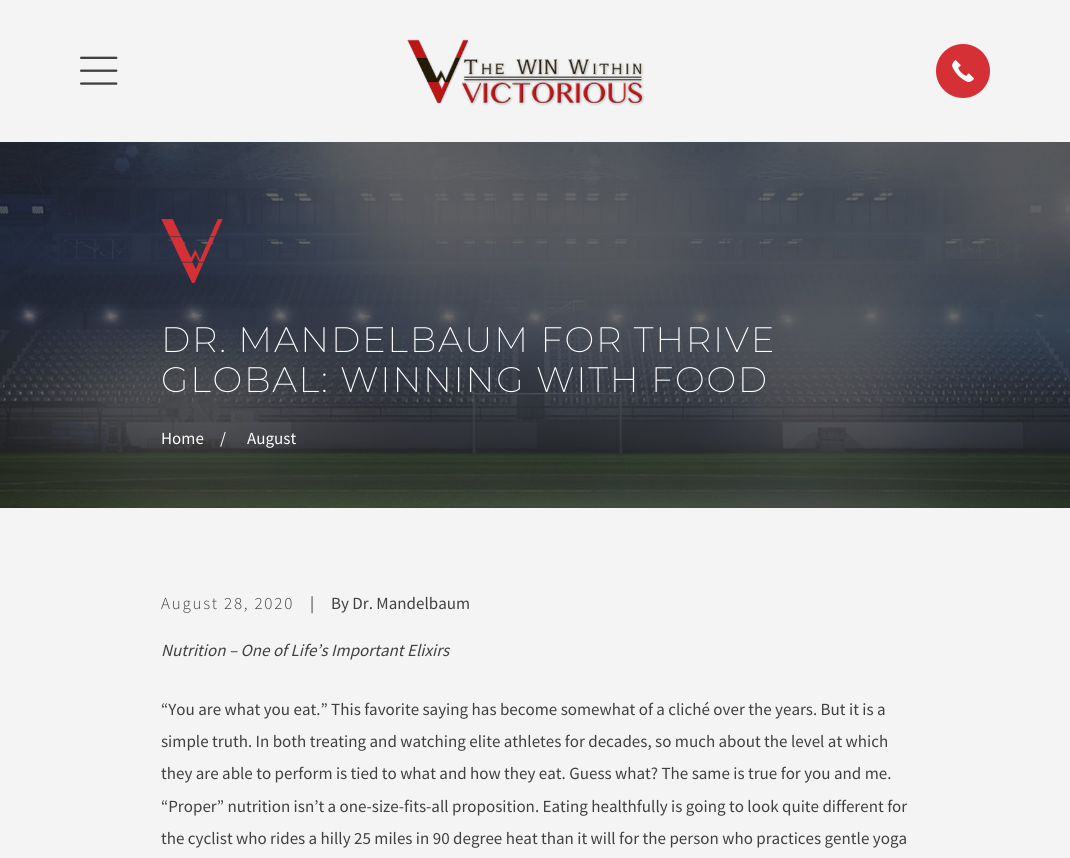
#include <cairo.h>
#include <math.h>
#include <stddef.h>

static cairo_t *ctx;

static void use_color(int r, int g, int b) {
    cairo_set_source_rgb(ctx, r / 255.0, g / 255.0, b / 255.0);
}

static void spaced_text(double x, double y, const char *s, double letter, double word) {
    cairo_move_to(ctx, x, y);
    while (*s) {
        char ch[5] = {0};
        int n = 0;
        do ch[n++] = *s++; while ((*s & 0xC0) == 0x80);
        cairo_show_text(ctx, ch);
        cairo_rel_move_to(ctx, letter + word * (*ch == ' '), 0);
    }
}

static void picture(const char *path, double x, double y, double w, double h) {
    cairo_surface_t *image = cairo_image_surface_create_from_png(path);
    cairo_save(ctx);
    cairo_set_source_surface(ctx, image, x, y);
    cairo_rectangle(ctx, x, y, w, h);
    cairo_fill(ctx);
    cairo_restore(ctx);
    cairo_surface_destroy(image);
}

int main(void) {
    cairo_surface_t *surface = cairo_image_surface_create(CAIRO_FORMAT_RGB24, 1070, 858);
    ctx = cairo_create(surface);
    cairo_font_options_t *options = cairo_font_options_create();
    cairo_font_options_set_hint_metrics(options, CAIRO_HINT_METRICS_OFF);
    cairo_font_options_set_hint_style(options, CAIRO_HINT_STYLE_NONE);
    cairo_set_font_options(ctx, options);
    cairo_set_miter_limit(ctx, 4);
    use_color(244, 244, 244);
    cairo_paint(ctx);
    picture("img1.png", 80, 56, 38, 29);
    picture("img2.png", 407, 39, 238, 67);
    use_color(214, 48, 55);
    cairo_arc(ctx, 963, 71, 27, 0, 2 * M_PI);
    cairo_fill(ctx);
    picture("img3.png", 952, 60, 22, 22);
    picture("img4.png", 0, 142, 1070, 366);
    picture("img5.png", 161, 219, 62, 64);
    cairo_select_font_face(ctx, "Montserrat ExtraLight", CAIRO_FONT_SLANT_NORMAL, CAIRO_FONT_WEIGHT_NORMAL);
    cairo_set_font_size(ctx, 35.4);
    use_color(255, 255, 255);
    spaced_text(161, 352, "DR. MANDELBAUM FOR THRIVE", 1.75, 0);
    spaced_text(161, 392, "GLOBAL: WINNING WITH FOOD", 1.75, 0);
    cairo_select_font_face(ctx, "Source Sans Pro", CAIRO_FONT_SLANT_NORMAL, CAIRO_FONT_WEIGHT_NORMAL);
    cairo_set_font_size(ctx, 17);
    cairo_move_to(ctx, 161, 444);
    cairo_show_text(ctx, "Home");
    cairo_move_to(ctx, 220, 444);
    cairo_show_text(ctx, "/");
    cairo_move_to(ctx, 247, 444);
    cairo_show_text(ctx, "August");
    cairo_select_font_face(ctx, "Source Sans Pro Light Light", CAIRO_FONT_SLANT_NORMAL, CAIRO_FONT_WEIGHT_NORMAL);
    use_color(64, 64, 64);
    spaced_text(161, 609, "August 28, 2020", 1.75, 0);
    cairo_select_font_face(ctx, "Source Sans Pro", CAIRO_FONT_SLANT_NORMAL, CAIRO_FONT_WEIGHT_NORMAL);
    cairo_move_to(ctx, 310, 609);
    cairo_show_text(ctx, "|");
    cairo_move_to(ctx, 331, 609);
    cairo_show_text(ctx, "By Dr. Mandelbaum");
    cairo_select_font_face(ctx, "Source Sans Pro", CAIRO_FONT_SLANT_ITALIC, CAIRO_FONT_WEIGHT_NORMAL);
    cairo_move_to(ctx, 161, 656);
    cairo_show_text(ctx, "Nutrition – One of Life’s Important Elixirs");
    cairo_select_font_face(ctx, "Source Sans Pro", CAIRO_FONT_SLANT_NORMAL, CAIRO_FONT_WEIGHT_NORMAL);
    cairo_move_to(ctx, 161, 715);
    cairo_show_text(ctx, "“You are what you eat.” This favorite saying has become somewhat of a cliché over the years. But it is a");
    cairo_move_to(ctx, 161, 747);
    cairo_show_text(ctx, "simple truth. In both treating and watching elite athletes for decades, so much about the level at which");
    cairo_move_to(ctx, 161, 779);
    cairo_show_text(ctx, "they are able to perform is tied to what and how they eat. Guess what? The same is true for you and me.");
    cairo_move_to(ctx, 161, 812);
    cairo_show_text(ctx, "“Proper” nutrition isn’t a one-size-fits-all proposition. Eating healthfully is going to look quite different for");
    cairo_move_to(ctx, 161, 844);
    cairo_show_text(ctx, "the cyclist who rides a hilly 25 miles in 90 degree heat than it will for the person who practices gentle yoga");
    cairo_surface_write_to_png(surface, "result.png");
    cairo_font_options_destroy(options);
    cairo_destroy(ctx);
    cairo_surface_destroy(surface);
    return 0;
}
